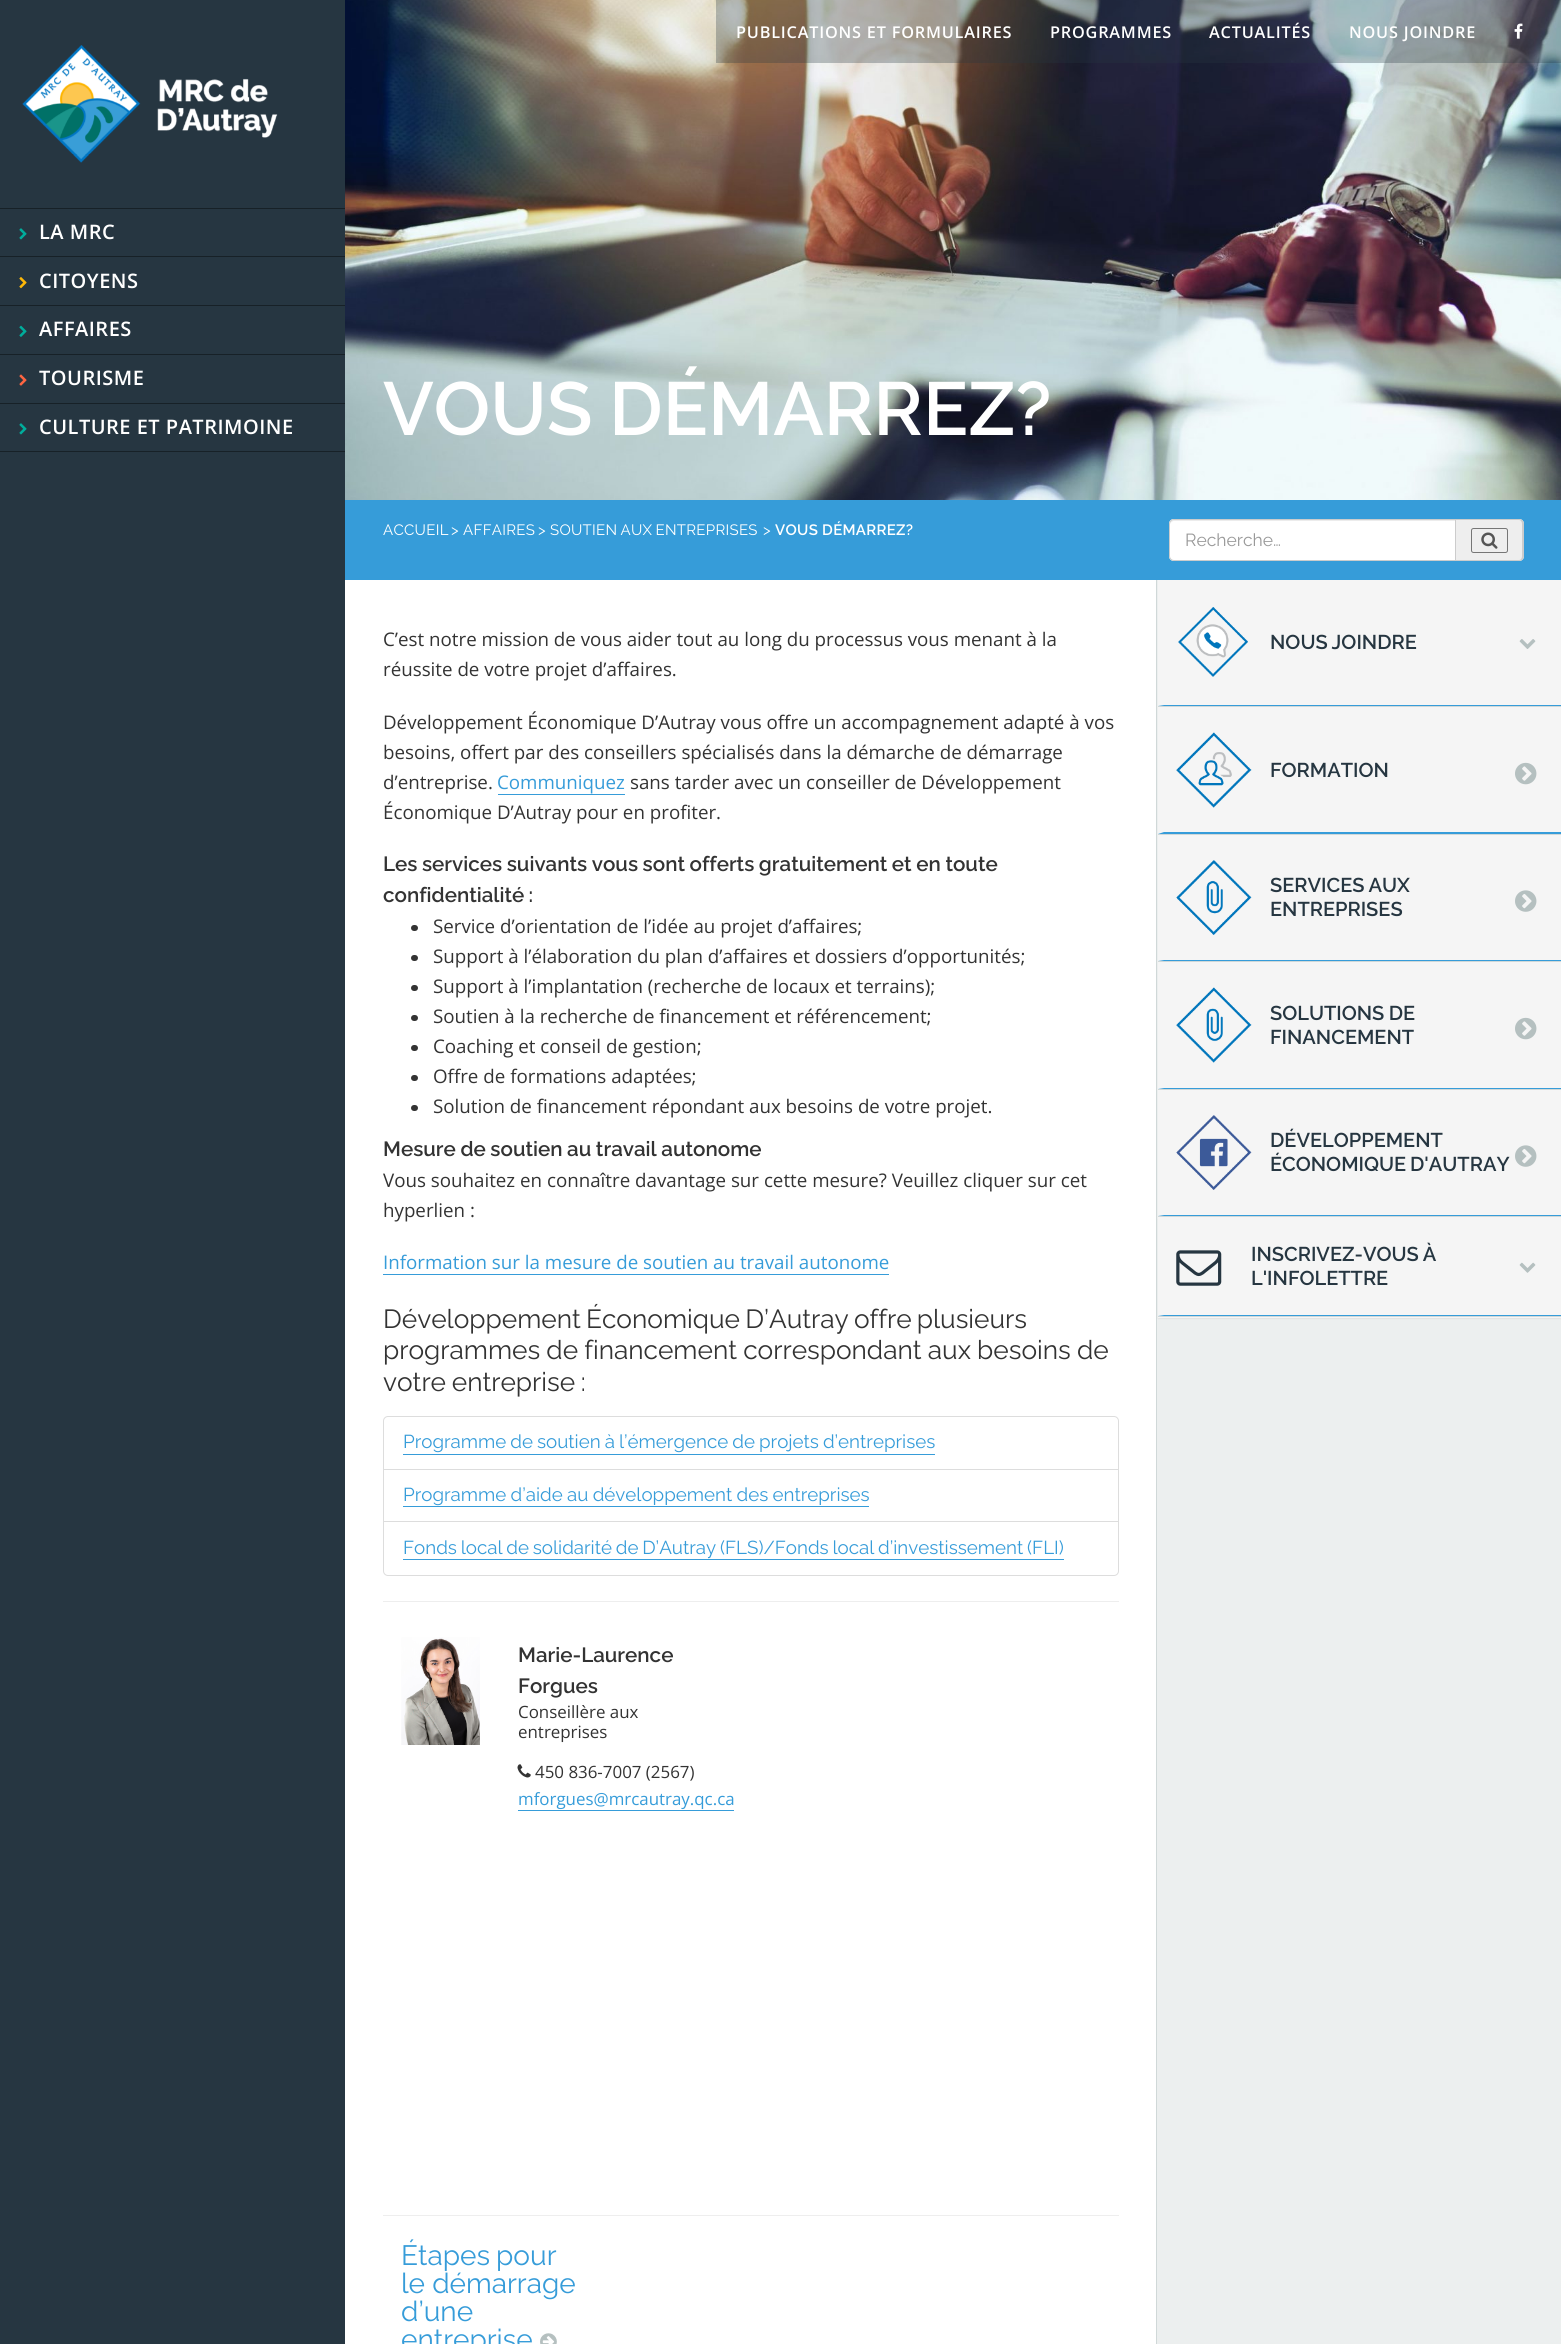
#include <cairo.h>
#include <math.h>
#include <stddef.h>

static cairo_t *ctx;

static void use_color(int r, int g, int b) {
    cairo_set_source_rgb(ctx, r / 255.0, g / 255.0, b / 255.0);
}

static void spaced_text(double x, double y, const char *s, double letter, double word) {
    cairo_move_to(ctx, x, y);
    while (*s) {
        char ch[5] = {0};
        int n = 0;
        do ch[n++] = *s++; while ((*s & 0xC0) == 0x80);
        cairo_show_text(ctx, ch);
        cairo_rel_move_to(ctx, letter + word * (*ch == ' '), 0);
    }
}

static void round_rect(double x, double y, double w, double h, double r) {
    cairo_new_sub_path(ctx);
    cairo_arc(ctx, x + w - r, y + h - r, r, 0, M_PI / 2);
    cairo_arc(ctx, x + r, y + h - r, r, M_PI / 2, M_PI);
    cairo_arc(ctx, x + r, y + r, r, M_PI, 1.5 * M_PI);
    cairo_arc(ctx, x + w - r, y + r, r, 1.5 * M_PI, 2 * M_PI);
    cairo_close_path(ctx);
}

static void shadow(double x, double y, double w, double h, double r, double blur, double alpha) {
    cairo_push_group_with_content(ctx, CAIRO_CONTENT_ALPHA);
    cairo_set_operator(ctx, CAIRO_OPERATOR_SOURCE);
    for (int i = 15; i >= -15 && fmin(w, h) + blur * i / 3 > 0; i -= 2) {
        double e = blur * i / 6;
        cairo_set_source_rgba(ctx, 0, 0, 0, alpha * erfc((i - 1) / 8.5) / 2);
        round_rect(x - e, y - e, w + 2 * e, h + 2 * e, fmax(0, fmin(r + e + blur * .6, fmin(w, h) / 2 + e)));
        cairo_fill(ctx);
    }
    cairo_pattern_t *soft = cairo_pop_group(ctx);
    cairo_mask(ctx, soft);
    cairo_pattern_destroy(soft);
}

static void picture(const char *path, double x, double y, double w, double h) {
    cairo_surface_t *image = cairo_image_surface_create_from_png(path);
    cairo_save(ctx);
    cairo_set_source_surface(ctx, image, x, y);
    cairo_rectangle(ctx, x, y, w, h);
    cairo_fill(ctx);
    cairo_restore(ctx);
    cairo_surface_destroy(image);
}

int main(void) {
    cairo_surface_t *surface = cairo_image_surface_create(CAIRO_FORMAT_RGB24, 1561, 2344);
    ctx = cairo_create(surface);
    cairo_font_options_t *options = cairo_font_options_create();
    cairo_font_options_set_hint_metrics(options, CAIRO_HINT_METRICS_OFF);
    cairo_font_options_set_hint_style(options, CAIRO_HINT_STYLE_NONE);
    cairo_set_font_options(ctx, options);
    cairo_set_miter_limit(ctx, 4);
    use_color(255, 255, 255);
    cairo_paint(ctx);
    use_color(38, 54, 65);
    cairo_rectangle(ctx, 0, 0, 345, 2344);
    cairo_fill(ctx);
    picture("img1.png", 22, 45, 256, 118);
    use_color(23, 33, 39);
    cairo_rectangle(ctx, 0, 208, 345, 1);
    cairo_fill(ctx);
    cairo_rectangle(ctx, 0, 256, 345, 1);
    cairo_fill(ctx);
    picture("img2.png", 19, 228, 8, 12);
    cairo_select_font_face(ctx, "Open Sans SemiBold", CAIRO_FONT_SLANT_NORMAL, CAIRO_FONT_WEIGHT_NORMAL);
    cairo_set_font_size(ctx, 20);
    use_color(255, 255, 255);
    spaced_text(39, 239, "LA MRC", 0.5, 0);
    use_color(23, 33, 39);
    cairo_rectangle(ctx, 0, 305, 345, 1);
    cairo_fill(ctx);
    picture("img3.png", 19, 277, 8, 12);
    use_color(255, 255, 255);
    spaced_text(39, 288, "CITOYENS", 0.5, 0);
    use_color(23, 33, 39);
    cairo_rectangle(ctx, 0, 354, 345, 1);
    cairo_fill(ctx);
    picture("img4.png", 19, 325, 8, 12);
    use_color(255, 255, 255);
    spaced_text(39, 336, "AFFAIRES", 0.5, 0);
    use_color(23, 33, 39);
    cairo_rectangle(ctx, 0, 403, 345, 1);
    cairo_fill(ctx);
    picture("img5.png", 19, 374, 8, 12);
    use_color(255, 255, 255);
    spaced_text(39, 385, "TOURISME", 0.5, 0);
    use_color(23, 33, 39);
    cairo_rectangle(ctx, 0, 451, 345, 1);
    cairo_fill(ctx);
    picture("img2.png", 19, 423, 8, 12);
    use_color(255, 255, 255);
    spaced_text(39, 434, "CULTURE ET PATRIMOINE", 0.5, 0);
    picture("img6.png", 345, 0, 1216, 500);
    cairo_set_source_rgba(ctx, 0.149, 0.212, 0.255, 0.3);
    cairo_rectangle(ctx, 716, 0, 845, 63);
    cairo_fill(ctx);
    cairo_set_font_size(ctx, 16.25);
    use_color(255, 255, 255);
    spaced_text(736, 38, "PUBLICATIONS ET FORMULAIRES", 0.8, 0);
    spaced_text(1050, 38, "PROGRAMMES", 0.8, 0);
    spaced_text(1209, 38, "ACTUALITÉS", 0.8, 0);
    spaced_text(1349, 38, "NOUS JOINDRE", 0.8, 0);
    picture("img7.png", 1514, 23, 9, 16);
    cairo_select_font_face(ctx, "Raleway SemiBold", CAIRO_FONT_SLANT_NORMAL, CAIRO_FONT_WEIGHT_NORMAL);
    cairo_set_font_size(ctx, 75);
    spaced_text(383, 435, "VOUS DÉMARREZ?", 0, -2);
    use_color(54, 156, 217);
    cairo_rectangle(ctx, 345, 500, 1216, 80);
    cairo_fill(ctx);
    cairo_select_font_face(ctx, "Raleway", CAIRO_FONT_SLANT_NORMAL, CAIRO_FONT_WEIGHT_NORMAL);
    cairo_set_font_size(ctx, 15);
    use_color(255, 255, 255);
    spaced_text(383, 535, "ACCUEIL", 0.3, 0);
    spaced_text(451, 535, "> AFFAIRES", 0.3, 0);
    spaced_text(538, 535, ">", 0.3, 0);
    spaced_text(550, 535, "SOUTIEN AUX ENTREPRISES", 0.3, -1);
    spaced_text(763, 535, ">", 0.3, 0);
    cairo_select_font_face(ctx, "Raleway SemiBold", CAIRO_FONT_SLANT_NORMAL, CAIRO_FONT_WEIGHT_NORMAL);
    spaced_text(775, 535, "VOUS DÉMARREZ?", 0.3, 0);
    cairo_new_path(ctx);
    cairo_move_to(ctx, 1174, 519);
    cairo_line_to(ctx, 1456, 519);
    cairo_line_to(ctx, 1456, 561);
    cairo_line_to(ctx, 1174, 561);
    cairo_curve_to(ctx, 1171, 561, 1169, 559, 1169, 556);
    cairo_line_to(ctx, 1169, 524);
    cairo_curve_to(ctx, 1169, 521, 1171, 519, 1174, 519);
    cairo_close_path(ctx);
    cairo_fill(ctx);
    use_color(236, 236, 236);
    cairo_new_path(ctx);
    cairo_move_to(ctx, 1174, 521);
    cairo_line_to(ctx, 1455, 521);
    cairo_line_to(ctx, 1455, 520);
    cairo_line_to(ctx, 1174, 520);
    cairo_curve_to(ctx, 1171, 520, 1170, 522, 1170, 525);
    cairo_curve_to(ctx, 1170, 523, 1172, 521, 1174, 521);
    cairo_close_path(ctx);
    cairo_fill(ctx);
    cairo_new_path(ctx);
    cairo_move_to(ctx, 1174, 519.5);
    cairo_line_to(ctx, 1455.5, 519.5);
    cairo_line_to(ctx, 1455.5, 560.5);
    cairo_line_to(ctx, 1174, 560.5);
    cairo_curve_to(ctx, 1171.5, 560.5, 1169.5, 558.5, 1169.5, 556);
    cairo_line_to(ctx, 1169.5, 524);
    cairo_curve_to(ctx, 1169.5, 521.5, 1171.5, 519.5, 1174, 519.5);
    cairo_close_path(ctx);
    use_color(204, 204, 204);
    cairo_set_line_width(ctx, 1);
    cairo_stroke(ctx);
    cairo_select_font_face(ctx, "Raleway", CAIRO_FONT_SLANT_NORMAL, CAIRO_FONT_WEIGHT_NORMAL);
    cairo_set_font_size(ctx, 17.5);
    use_color(153, 153, 153);
    cairo_move_to(ctx, 1185, 546);
    cairo_show_text(ctx, "Recherche…");
    use_color(238, 238, 238);
    cairo_new_path(ctx);
    cairo_move_to(ctx, 1456, 519);
    cairo_line_to(ctx, 1519, 519);
    cairo_curve_to(ctx, 1522, 519, 1524, 521, 1524, 524);
    cairo_line_to(ctx, 1524, 556);
    cairo_curve_to(ctx, 1524, 559, 1522, 561, 1519, 561);
    cairo_line_to(ctx, 1456, 561);
    cairo_close_path(ctx);
    cairo_fill(ctx);
    use_color(204, 204, 204);
    cairo_set_fill_rule(ctx, CAIRO_FILL_RULE_EVEN_ODD);
    cairo_new_path(ctx);
    cairo_move_to(ctx, 1456, 519);
    cairo_line_to(ctx, 1519, 519);
    cairo_curve_to(ctx, 1522, 519, 1524, 521, 1524, 524);
    cairo_line_to(ctx, 1524, 556);
    cairo_curve_to(ctx, 1524, 559, 1522, 561, 1519, 561);
    cairo_line_to(ctx, 1456, 561);
    cairo_close_path(ctx);
    cairo_move_to(ctx, 1456, 520);
    cairo_line_to(ctx, 1519, 520);
    cairo_curve_to(ctx, 1521, 520, 1522, 522, 1522, 524);
    cairo_line_to(ctx, 1522, 556);
    cairo_curve_to(ctx, 1522, 558, 1521, 560, 1519, 560);
    cairo_line_to(ctx, 1456, 560);
    cairo_close_path(ctx);
    cairo_fill(ctx);
    round_rect(1471.5, 528.5, 36, 24, 2);
    use_color(118, 118, 118);
    cairo_stroke(ctx);
    picture("img8.png", 1481, 532, 17, 17);
    cairo_select_font_face(ctx, "Open Sans", CAIRO_FONT_SLANT_NORMAL, CAIRO_FONT_WEIGHT_NORMAL);
    cairo_set_font_size(ctx, 18.75);
    use_color(51, 51, 51);
    cairo_move_to(ctx, 383, 646);
    cairo_show_text(ctx, "C’est notre mission de vous aider tout au long du processus vous menant à la");
    cairo_move_to(ctx, 383, 676);
    cairo_show_text(ctx, "réussite de votre projet d’affaires.");
    cairo_move_to(ctx, 383, 729);
    cairo_show_text(ctx, "Développement Économique D’Autray vous offre un accompagnement adapté à vos");
    cairo_move_to(ctx, 383, 759);
    cairo_show_text(ctx, "besoins, offert par des conseillers spécialisés dans la démarche de démarrage");
    cairo_move_to(ctx, 383, 789);
    cairo_show_text(ctx, "d’entreprise.");
    use_color(54, 156, 217);
    cairo_move_to(ctx, 497, 789);
    cairo_show_text(ctx, "Communiquez");
    cairo_rectangle(ctx, 498, 794, 127, 1);
    cairo_fill(ctx);
    use_color(51, 51, 51);
    cairo_move_to(ctx, 630, 789);
    cairo_show_text(ctx, "sans tarder avec un conseiller de Développement");
    cairo_move_to(ctx, 383, 819);
    cairo_show_text(ctx, "Économique D’Autray pour en profiter.");
    cairo_select_font_face(ctx, "Raleway SemiBold", CAIRO_FONT_SLANT_NORMAL, CAIRO_FONT_WEIGHT_NORMAL);
    cairo_set_font_size(ctx, 20.6);
    spaced_text(383, 871, "Les services suivants vous sont offerts gratuitement et en toute", 0, -0.5);
    spaced_text(383, 902, "confidentialité :", 0, -1);
    round_rect(411, 925, 7, 6, 3);
    cairo_fill(ctx);
    cairo_select_font_face(ctx, "Open Sans", CAIRO_FONT_SLANT_NORMAL, CAIRO_FONT_WEIGHT_NORMAL);
    cairo_set_font_size(ctx, 18.75);
    cairo_move_to(ctx, 433, 933);
    cairo_show_text(ctx, "Service d’orientation de l’idée au projet d’affaires;");
    round_rect(411, 955, 7, 6, 3);
    cairo_fill(ctx);
    cairo_move_to(ctx, 433, 963);
    cairo_show_text(ctx, "Support à l’élaboration du plan d’affaires et dossiers d’opportunités;");
    round_rect(411, 985, 7, 6, 3);
    cairo_fill(ctx);
    cairo_move_to(ctx, 433, 993);
    cairo_show_text(ctx, "Support à l’implantation (recherche de locaux et terrains);");
    round_rect(411, 1015, 7, 6, 3);
    cairo_fill(ctx);
    cairo_move_to(ctx, 433, 1023);
    cairo_show_text(ctx, "Soutien à la recherche de financement et référencement;");
    round_rect(411, 1045, 7, 6, 3);
    cairo_fill(ctx);
    cairo_move_to(ctx, 433, 1053);
    cairo_show_text(ctx, "Coaching et conseil de gestion;");
    round_rect(411, 1075, 7, 6, 3);
    cairo_fill(ctx);
    cairo_move_to(ctx, 433, 1083);
    cairo_show_text(ctx, "Offre de formations adaptées;");
    round_rect(411, 1105, 7, 6, 3);
    cairo_fill(ctx);
    cairo_move_to(ctx, 433, 1113);
    cairo_show_text(ctx, "Solution de financement répondant aux besoins de votre projet.");
    cairo_select_font_face(ctx, "Raleway SemiBold", CAIRO_FONT_SLANT_NORMAL, CAIRO_FONT_WEIGHT_NORMAL);
    cairo_set_font_size(ctx, 20.6);
    spaced_text(383, 1156, "Mesure de soutien au travail autonome", 0, -0.5);
    cairo_select_font_face(ctx, "Open Sans", CAIRO_FONT_SLANT_NORMAL, CAIRO_FONT_WEIGHT_NORMAL);
    cairo_set_font_size(ctx, 18.75);
    cairo_move_to(ctx, 383, 1187);
    cairo_show_text(ctx, "Vous souhaitez en connaître davantage sur cette mesure? Veuillez cliquer sur cet");
    cairo_move_to(ctx, 383, 1217);
    cairo_show_text(ctx, "hyperlien :");
    use_color(54, 156, 217);
    cairo_move_to(ctx, 383, 1269);
    cairo_show_text(ctx, "Information sur la mesure de soutien au travail autonome");
    cairo_rectangle(ctx, 383, 1274, 506, 1);
    cairo_fill(ctx);
    cairo_select_font_face(ctx, "Raleway", CAIRO_FONT_SLANT_NORMAL, CAIRO_FONT_WEIGHT_NORMAL);
    cairo_set_font_size(ctx, 26.25);
    use_color(51, 51, 51);
    spaced_text(383, 1328, "Développement Économique D’Autray offre plusieurs", 0, -1.5);
    spaced_text(383, 1359, "programmes de financement correspondant aux besoins de", 0, -0.5);
    spaced_text(383, 1391, "votre entreprise :", 0, -1);
    cairo_new_path(ctx);
    cairo_move_to(ctx, 388, 1416.5);
    cairo_line_to(ctx, 1114, 1416.5);
    cairo_curve_to(ctx, 1116.5, 1416.5, 1118.5, 1418.5, 1118.5, 1421);
    cairo_line_to(ctx, 1118.5, 1469.5);
    cairo_line_to(ctx, 383.5, 1469.5);
    cairo_line_to(ctx, 383.5, 1421);
    cairo_curve_to(ctx, 383.5, 1418.5, 385.5, 1416.5, 388, 1416.5);
    cairo_close_path(ctx);
    use_color(221, 221, 221);
    cairo_stroke(ctx);
    cairo_set_font_size(ctx, 18.75);
    use_color(54, 156, 217);
    spaced_text(403, 1448, "Programme de soutien à l’émergence de projets d’entreprises", 0, -0.75);
    cairo_rectangle(ctx, 403, 1454, 532, 1);
    cairo_fill(ctx);
    cairo_rectangle(ctx, 383.5, 1469.5, 735, 53);
    use_color(221, 221, 221);
    cairo_stroke(ctx);
    use_color(54, 156, 217);
    spaced_text(403, 1501, "Programme d’aide au développement des entreprises", 0, -0.5);
    cairo_rectangle(ctx, 403, 1506, 466, 1);
    cairo_fill(ctx);
    use_color(255, 255, 255);
    cairo_new_path(ctx);
    cairo_move_to(ctx, 383.5, 1521.5);
    cairo_line_to(ctx, 1118.5, 1521.5);
    cairo_line_to(ctx, 1118.5, 1571);
    cairo_curve_to(ctx, 1118.5, 1573.5, 1116.5, 1575.5, 1114, 1575.5);
    cairo_line_to(ctx, 388, 1575.5);
    cairo_curve_to(ctx, 385.5, 1575.5, 383.5, 1573.5, 383.5, 1571);
    cairo_close_path(ctx);
    cairo_fill_preserve(ctx);
    use_color(221, 221, 221);
    cairo_stroke(ctx);
    use_color(54, 156, 217);
    spaced_text(403, 1554, "Fonds local de solidarité de D’Autray (FLS)/Fonds local d’investissement (FLI)", 0, -1);
    cairo_rectangle(ctx, 403, 1559, 661, 1);
    cairo_fill(ctx);
    use_color(238, 238, 238);
    cairo_rectangle(ctx, 383, 1601, 736, 1);
    cairo_fill(ctx);
    picture("img9.png", 401, 1637, 79, 108);
    cairo_select_font_face(ctx, "Raleway SemiBold", CAIRO_FONT_SLANT_NORMAL, CAIRO_FONT_WEIGHT_NORMAL);
    cairo_set_font_size(ctx, 20.6);
    use_color(51, 51, 51);
    cairo_move_to(ctx, 518, 1662);
    cairo_show_text(ctx, "Marie-Laurence");
    cairo_move_to(ctx, 518, 1693);
    cairo_show_text(ctx, "Forgues");
    cairo_select_font_face(ctx, "Open Sans", CAIRO_FONT_SLANT_NORMAL, CAIRO_FONT_WEIGHT_NORMAL);
    cairo_set_font_size(ctx, 16.9);
    cairo_move_to(ctx, 518, 1718);
    cairo_show_text(ctx, "Conseillère aux");
    cairo_move_to(ctx, 518, 1738);
    cairo_show_text(ctx, "entreprises");
    picture("img10.png", 517, 1764, 14, 14);
    cairo_move_to(ctx, 535, 1778);
    cairo_show_text(ctx, "450 836-7007 (2567)");
    use_color(54, 156, 217);
    cairo_move_to(ctx, 518, 1805);
    cairo_show_text(ctx, "mforgues@mrcautray.qc.ca");
    cairo_rectangle(ctx, 518, 1810, 216, 1);
    cairo_fill(ctx);
    use_color(238, 238, 238);
    cairo_rectangle(ctx, 383, 2215, 736, 1);
    cairo_fill(ctx);
    cairo_select_font_face(ctx, "Raleway", CAIRO_FONT_SLANT_NORMAL, CAIRO_FONT_WEIGHT_NORMAL);
    cairo_set_font_size(ctx, 28);
    use_color(54, 156, 217);
    spaced_text(401, 2265, "Étapes pour", 0, -1);
    cairo_move_to(ctx, 401, 2293);
    cairo_show_text(ctx, "le démarrage");
    cairo_move_to(ctx, 401, 2321);
    cairo_show_text(ctx, "d’une");
    cairo_move_to(ctx, 401, 2349);
    cairo_show_text(ctx, "entreprise");
    picture("img11.png", 540, 2333, 17, 11);
    use_color(236, 239, 239);
    cairo_rectangle(ctx, 1157, 580, 404, 1764);
    cairo_fill(ctx);
    use_color(208, 216, 216);
    cairo_rectangle(ctx, 1156, 580, 1, 1764);
    cairo_fill(ctx);
    use_color(245, 245, 245);
    cairo_rectangle(ctx, 1158, 580, 403, 254);
    cairo_fill(ctx);
    use_color(208, 216, 216);
    cairo_rectangle(ctx, 1158, 706, 403, 1);
    cairo_fill(ctx);
    use_color(54, 156, 217);
    cairo_set_fill_rule(ctx, CAIRO_FILL_RULE_WINDING);
    cairo_new_path(ctx);
    cairo_move_to(ctx, 1561, 706);
    cairo_line_to(ctx, 1158, 706);
    cairo_line_to(ctx, 1164, 705);
    cairo_line_to(ctx, 1561, 705);
    cairo_close_path(ctx);
    cairo_fill(ctx);
    picture("img12.png", 1178, 607, 70, 70);
    cairo_select_font_face(ctx, "Raleway SemiBold", CAIRO_FONT_SLANT_NORMAL, CAIRO_FONT_WEIGHT_NORMAL);
    cairo_set_font_size(ctx, 20);
    use_color(38, 54, 65);
    spaced_text(1270, 649, "NOUS JOINDRE", 0, -1);
    picture("img13.png", 1519, 639, 17, 10);
    use_color(208, 216, 216);
    cairo_rectangle(ctx, 1158, 834, 403, 1);
    cairo_fill(ctx);
    use_color(54, 156, 217);
    cairo_new_path(ctx);
    cairo_move_to(ctx, 1561, 834);
    cairo_line_to(ctx, 1158, 834);
    cairo_line_to(ctx, 1164, 832);
    cairo_line_to(ctx, 1561, 832);
    cairo_close_path(ctx);
    cairo_fill(ctx);
    picture("img14.png", 1176, 732, 76, 76);
    use_color(38, 54, 65);
    cairo_move_to(ctx, 1270, 777);
    cairo_show_text(ctx, "FORMATION");
    picture("img15.png", 1515, 762, 22, 23);
    use_color(245, 245, 245);
    cairo_rectangle(ctx, 1158, 835, 403, 254);
    cairo_fill(ctx);
    use_color(208, 216, 216);
    cairo_rectangle(ctx, 1158, 961, 403, 1);
    cairo_fill(ctx);
    use_color(54, 156, 217);
    cairo_new_path(ctx);
    cairo_move_to(ctx, 1561, 961);
    cairo_line_to(ctx, 1158, 961);
    cairo_line_to(ctx, 1164, 960);
    cairo_line_to(ctx, 1561, 960);
    cairo_close_path(ctx);
    cairo_fill(ctx);
    picture("img16.png", 1176, 860, 76, 75);
    use_color(38, 54, 65);
    spaced_text(1270, 892, "SERVICES AUX", 0, -1);
    cairo_move_to(ctx, 1270, 916);
    cairo_show_text(ctx, "ENTREPRISES");
    picture("img17.png", 1515, 890, 22, 22);
    use_color(208, 216, 216);
    cairo_rectangle(ctx, 1158, 1089, 403, 1);
    cairo_fill(ctx);
    use_color(54, 156, 217);
    cairo_new_path(ctx);
    cairo_move_to(ctx, 1561, 1089);
    cairo_line_to(ctx, 1158, 1089);
    cairo_line_to(ctx, 1164, 1088);
    cairo_line_to(ctx, 1561, 1088);
    cairo_close_path(ctx);
    cairo_fill(ctx);
    picture("img18.png", 1176, 987, 76, 76);
    use_color(38, 54, 65);
    spaced_text(1270, 1020, "SOLUTIONS DE", 0, -0.5);
    cairo_move_to(ctx, 1270, 1044);
    cairo_show_text(ctx, "FINANCEMENT");
    picture("img15.png", 1515, 1017, 22, 23);
    use_color(245, 245, 245);
    cairo_rectangle(ctx, 1158, 1090, 403, 128);
    cairo_fill(ctx);
    use_color(208, 216, 216);
    cairo_rectangle(ctx, 1158, 1216, 403, 1);
    cairo_fill(ctx);
    use_color(54, 156, 217);
    cairo_new_path(ctx);
    cairo_move_to(ctx, 1561, 1216);
    cairo_line_to(ctx, 1158, 1216);
    cairo_line_to(ctx, 1164, 1215);
    cairo_line_to(ctx, 1561, 1215);
    cairo_close_path(ctx);
    cairo_fill(ctx);
    picture("img19.png", 1176, 1115, 76, 75);
    use_color(38, 54, 65);
    cairo_move_to(ctx, 1270, 1147);
    cairo_show_text(ctx, "DÉVELOPPEMENT");
    spaced_text(1270, 1171, "ÉCONOMIQUE D'AUTRAY", 0, -1);
    picture("img17.png", 1515, 1145, 22, 22);
    use_color(0, 0, 0);
    shadow(1158, 1219, 403, 100, 0, 0.5, 0.05);
    use_color(245, 245, 245);
    cairo_rectangle(ctx, 1158, 1218, 403, 100);
    cairo_fill(ctx);
    use_color(208, 216, 216);
    cairo_rectangle(ctx, 1158, 1316, 403, 1);
    cairo_fill(ctx);
    use_color(54, 156, 217);
    cairo_new_path(ctx);
    cairo_move_to(ctx, 1561, 1316);
    cairo_line_to(ctx, 1158, 1316);
    cairo_line_to(ctx, 1164, 1315);
    cairo_line_to(ctx, 1561, 1315);
    cairo_close_path(ctx);
    cairo_fill(ctx);
    picture("img20.png", 1176, 1250, 46, 36);
    use_color(38, 54, 65);
    spaced_text(1251, 1261, "INSCRIVEZ-VOUS À", 0, -1);
    cairo_move_to(ctx, 1251, 1285);
    cairo_show_text(ctx, "L'INFOLETTRE");
    picture("img21.png", 1519, 1262, 17, 11);
    cairo_surface_write_to_png(surface, "result.png");
    cairo_font_options_destroy(options);
    cairo_destroy(ctx);
    cairo_surface_destroy(surface);
    return 0;
}
